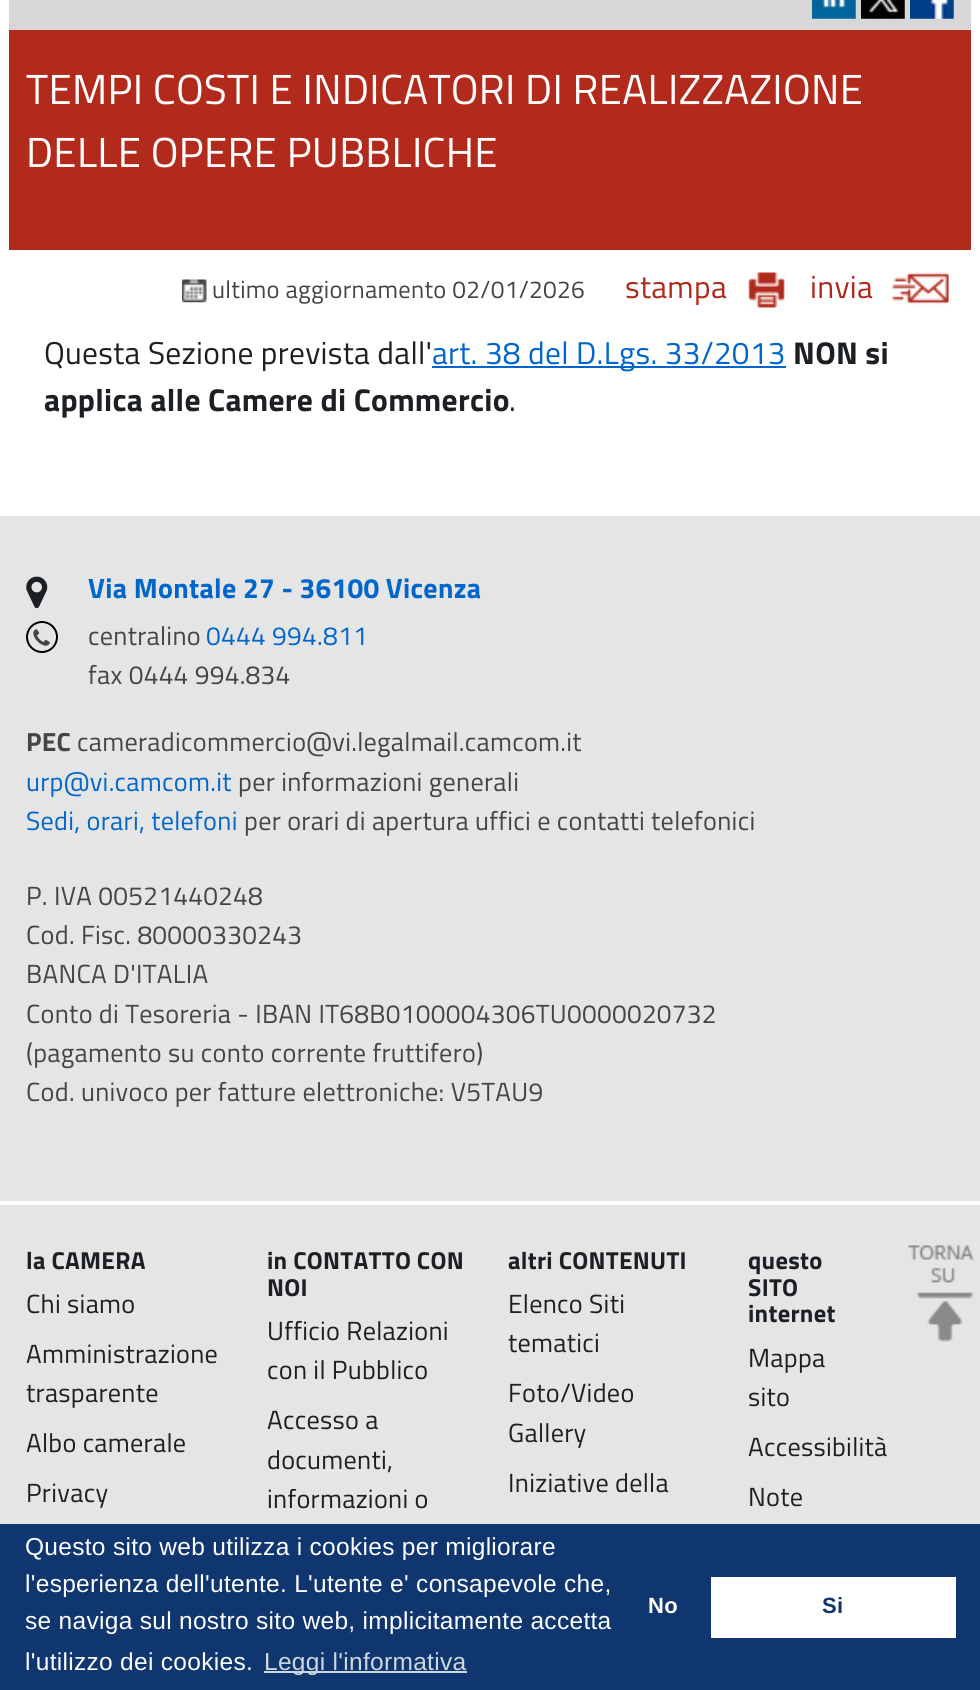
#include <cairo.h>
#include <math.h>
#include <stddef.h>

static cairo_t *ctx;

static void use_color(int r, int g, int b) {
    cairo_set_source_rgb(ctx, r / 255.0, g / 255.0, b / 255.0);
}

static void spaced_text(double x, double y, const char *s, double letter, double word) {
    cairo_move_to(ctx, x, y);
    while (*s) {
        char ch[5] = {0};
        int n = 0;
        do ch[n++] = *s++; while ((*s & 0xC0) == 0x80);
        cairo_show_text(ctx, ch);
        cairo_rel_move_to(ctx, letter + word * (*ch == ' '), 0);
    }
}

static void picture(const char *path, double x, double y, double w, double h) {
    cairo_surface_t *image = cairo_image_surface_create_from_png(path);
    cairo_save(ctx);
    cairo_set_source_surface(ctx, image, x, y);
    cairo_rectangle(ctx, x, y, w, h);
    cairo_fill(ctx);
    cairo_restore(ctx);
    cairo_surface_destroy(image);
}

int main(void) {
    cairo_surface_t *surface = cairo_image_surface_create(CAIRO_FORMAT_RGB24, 980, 1690);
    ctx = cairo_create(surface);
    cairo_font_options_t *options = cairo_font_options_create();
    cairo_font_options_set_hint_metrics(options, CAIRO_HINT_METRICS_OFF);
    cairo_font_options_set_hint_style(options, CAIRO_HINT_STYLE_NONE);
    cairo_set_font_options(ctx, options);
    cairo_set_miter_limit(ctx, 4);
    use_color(255, 255, 255);
    cairo_paint(ctx);
    use_color(215, 215, 215);
    cairo_rectangle(ctx, 9, 0, 962, 30);
    cairo_fill(ctx);
    picture("img1.png", 812, 0, 44, 19);
    picture("img2.png", 861, 0, 44, 19);
    picture("img3.png", 910, 0, 44, 19);
    use_color(177, 42, 28);
    cairo_rectangle(ctx, 9, 30, 962, 220);
    cairo_fill(ctx);
    cairo_select_font_face(ctx, "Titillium", CAIRO_FONT_SLANT_NORMAL, CAIRO_FONT_WEIGHT_NORMAL);
    cairo_set_font_size(ctx, 42);
    use_color(255, 255, 255);
    spaced_text(26, 104, "TEMPI COSTI E INDICATORI DI REALIZZAZIONE", 0.3, 0);
    spaced_text(26, 167, "DELLE OPERE PUBBLICHE", 0.3, 0);
    picture("img4.png", 182, 279, 25, 24);
    cairo_set_font_size(ctx, 24.5);
    use_color(69, 69, 69);
    spaced_text(212, 298, "ultimo aggiornamento 02/01/2026", 0.3, 0);
    cairo_set_font_size(ctx, 31.5);
    use_color(176, 41, 28);
    spaced_text(625, 298, "stampa", 0.3, 0);
    picture("img5.png", 748, 272, 37, 36);
    spaced_text(810, 298, "invia", 0.3, 0);
    picture("img6.png", 892, 272, 57, 33);
    use_color(28, 32, 36);
    spaced_text(44, 364, "Questa Sezione prevista dall'", 0.3, 0);
    use_color(0, 102, 204);
    cairo_rectangle(ctx, 432, 366, 354, 2);
    cairo_fill(ctx);
    spaced_text(432, 364, "art. 38 del D.Lgs. 33/2013", 0.3, 0);
    cairo_select_font_face(ctx, "Titillium", CAIRO_FONT_SLANT_NORMAL, CAIRO_FONT_WEIGHT_BOLD);
    use_color(28, 32, 36);
    spaced_text(793, 364, "NON si", 0.3, 0);
    spaced_text(44, 411, "applica alle Camere di Commercio", 0.3, 0);
    cairo_select_font_face(ctx, "Titillium", CAIRO_FONT_SLANT_NORMAL, CAIRO_FONT_WEIGHT_NORMAL);
    spaced_text(509, 411, ".", 0.3, 0);
    use_color(229, 229, 229);
    cairo_rectangle(ctx, 0, 516, 980, 1008);
    cairo_fill(ctx);
    picture("img7.png", 26, 576, 22, 33);
    cairo_select_font_face(ctx, "Titillium", CAIRO_FONT_SLANT_NORMAL, CAIRO_FONT_WEIGHT_BOLD);
    cairo_set_font_size(ctx, 28);
    use_color(0, 102, 204);
    spaced_text(88, 598, "Via Montale 27 - 36100 Vicenza", 0.3, 0);
    cairo_new_path(ctx);
    cairo_arc(ctx, 42, 637, 15, 0, 2 * M_PI);
    use_color(0, 0, 0);
    cairo_stroke(ctx);
    picture("img8.png", 33, 629, 17, 17);
    cairo_select_font_face(ctx, "Titillium", CAIRO_FONT_SLANT_NORMAL, CAIRO_FONT_WEIGHT_NORMAL);
    cairo_set_font_size(ctx, 26.25);
    use_color(69, 69, 69);
    spaced_text(88, 645, "centralino", 0.3, 0);
    use_color(0, 102, 204);
    spaced_text(206, 645, "0444 994.811", 0.3, 0);
    use_color(69, 69, 69);
    spaced_text(88, 684, "fax 0444 994.834", 0.3, 0);
    cairo_select_font_face(ctx, "Titillium", CAIRO_FONT_SLANT_NORMAL, CAIRO_FONT_WEIGHT_BOLD);
    spaced_text(26, 751, "PEC", 0.3, 0);
    cairo_select_font_face(ctx, "Titillium", CAIRO_FONT_SLANT_NORMAL, CAIRO_FONT_WEIGHT_NORMAL);
    spaced_text(77, 751, "cameradicommercio@vi.legalmail.camcom.it", 0.3, 0);
    use_color(0, 102, 204);
    spaced_text(26, 791, "urp@vi.camcom.it", 0.3, 0);
    use_color(69, 69, 69);
    spaced_text(238, 791, "per informazioni generali", 0.3, 0);
    use_color(0, 102, 204);
    spaced_text(26, 830, "Sedi, orari, telefoni", 0.3, 0);
    use_color(69, 69, 69);
    spaced_text(244, 830, "per orari di apertura uffici e contatti telefonici", 0.3, 0);
    spaced_text(26, 905, "P. IVA 00521440248", 0.3, 0);
    spaced_text(26, 944, "Cod. Fisc. 80000330243", 0.3, 0);
    spaced_text(26, 983, "BANCA D'ITALIA", 0.3, 0);
    spaced_text(26, 1023, "Conto di Tesoreria - IBAN IT68B0100004306TU0000020732", 0.3, 0);
    spaced_text(26, 1062, "(pagamento su conto corrente fruttifero)", 0.3, 0);
    spaced_text(26, 1101, "Cod. univoco per fatture elettroniche: V5TAU9", 0.3, 0);
    use_color(255, 255, 255);
    cairo_rectangle(ctx, 0, 1201, 980, 4);
    cairo_fill(ctx);
    cairo_select_font_face(ctx, "Titillium", CAIRO_FONT_SLANT_NORMAL, CAIRO_FONT_WEIGHT_BOLD);
    cairo_set_font_size(ctx, 24.5);
    use_color(28, 32, 36);
    spaced_text(26, 1269, "la CAMERA", 0.3, 0);
    cairo_select_font_face(ctx, "Titillium", CAIRO_FONT_SLANT_NORMAL, CAIRO_FONT_WEIGHT_NORMAL);
    cairo_set_font_size(ctx, 26.25);
    spaced_text(26, 1313, "Chi siamo", 0.3, 0);
    spaced_text(26, 1363, "Amministrazione", 0.3, 0);
    spaced_text(26, 1402, "trasparente", 0.3, 0);
    spaced_text(26, 1452, "Albo camerale", 0.3, 0);
    spaced_text(26, 1502, "Privacy", 0.3, 0);
    cairo_select_font_face(ctx, "Titillium", CAIRO_FONT_SLANT_NORMAL, CAIRO_FONT_WEIGHT_BOLD);
    cairo_set_font_size(ctx, 24.5);
    spaced_text(267, 1269, "in CONTATTO CON", 0.3, 0);
    spaced_text(267, 1296, "NOI", 0.3, 0);
    cairo_select_font_face(ctx, "Titillium", CAIRO_FONT_SLANT_NORMAL, CAIRO_FONT_WEIGHT_NORMAL);
    cairo_set_font_size(ctx, 26.25);
    spaced_text(267, 1340, "Ufficio Relazioni", 0.3, 0);
    spaced_text(267, 1379, "con il Pubblico", 0.3, 0);
    spaced_text(267, 1429, "Accesso a", 0.3, 0);
    spaced_text(267, 1469, "documenti,", 0.3, 0);
    spaced_text(267, 1508, "informazioni o", 0.3, 0);
    cairo_select_font_face(ctx, "Titillium", CAIRO_FONT_SLANT_NORMAL, CAIRO_FONT_WEIGHT_BOLD);
    cairo_set_font_size(ctx, 24.5);
    spaced_text(508, 1269, "altri CONTENUTI", 0.3, 0);
    cairo_select_font_face(ctx, "Titillium", CAIRO_FONT_SLANT_NORMAL, CAIRO_FONT_WEIGHT_NORMAL);
    cairo_set_font_size(ctx, 26.25);
    spaced_text(508, 1313, "Elenco Siti", 0.3, 0);
    spaced_text(508, 1352, "tematici", 0.3, 0);
    spaced_text(508, 1402, "Foto/Video", 0.3, 0);
    spaced_text(508, 1442, "Gallery", 0.3, 0);
    spaced_text(508, 1492, "Iniziative della", 0.3, 0);
    cairo_select_font_face(ctx, "Titillium", CAIRO_FONT_SLANT_NORMAL, CAIRO_FONT_WEIGHT_BOLD);
    cairo_set_font_size(ctx, 24.5);
    spaced_text(748, 1269, "questo", 0.3, 0);
    spaced_text(748, 1296, "SITO", 0.3, 0);
    spaced_text(748, 1322, "internet", 0.3, 0);
    cairo_select_font_face(ctx, "Titillium", CAIRO_FONT_SLANT_NORMAL, CAIRO_FONT_WEIGHT_NORMAL);
    cairo_set_font_size(ctx, 26.25);
    spaced_text(748, 1367, "Mappa", 0.3, 0);
    spaced_text(748, 1406, "sito", 0.3, 0);
    spaced_text(748, 1456, "Accessibilità", 0.3, 0);
    spaced_text(748, 1506, "Note", 0.3, 0);
    picture("img9.png", 908, 1245, 65, 97);
    use_color(15, 54, 111);
    cairo_rectangle(ctx, 0, 1524, 980, 166);
    cairo_fill(ctx);
    cairo_select_font_face(ctx, "Liberation Sans", CAIRO_FONT_SLANT_NORMAL, CAIRO_FONT_WEIGHT_NORMAL);
    cairo_set_font_size(ctx, 24.5);
    use_color(255, 255, 255);
    spaced_text(25, 1555, "Questo sito web utilizza i cookies per migliorare", 0.3, 0);
    spaced_text(25, 1592, "l'esperienza dell'utente. L'utente e' consapevole che,", 0.3, 0);
    spaced_text(25, 1629, "se naviga sul nostro sito web, implicitamente accetta", 0.3, 0);
    spaced_text(25, 1670, "l'utilizzo dei cookies.", 0.3, 0);
    use_color(207, 215, 226);
    cairo_rectangle(ctx, 264, 1671, 203, 2);
    cairo_fill(ctx);
    spaced_text(264, 1670, "Leggi l'informativa", 0.3, 0);
    cairo_select_font_face(ctx, "Liberation Sans", CAIRO_FONT_SLANT_NORMAL, CAIRO_FONT_WEIGHT_BOLD);
    cairo_set_font_size(ctx, 22);
    use_color(255, 255, 255);
    spaced_text(648, 1613, "No", 0.3, 0);
    cairo_rectangle(ctx, 711, 1577, 245, 61);
    cairo_fill(ctx);
    use_color(15, 54, 111);
    spaced_text(822, 1613, "Si", 0.3, 0);
    cairo_surface_write_to_png(surface, "result.png");
    cairo_font_options_destroy(options);
    cairo_destroy(ctx);
    cairo_surface_destroy(surface);
    return 0;
}
